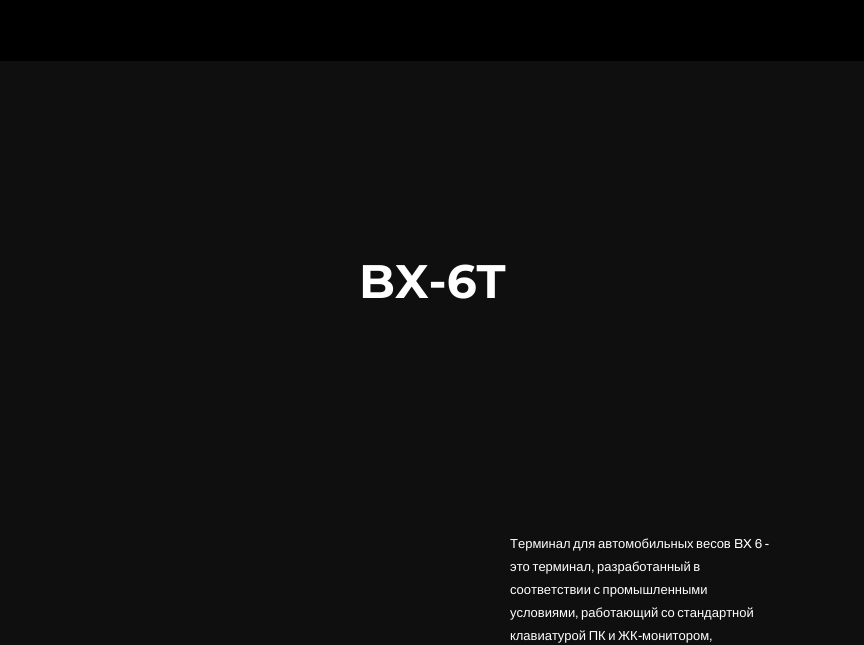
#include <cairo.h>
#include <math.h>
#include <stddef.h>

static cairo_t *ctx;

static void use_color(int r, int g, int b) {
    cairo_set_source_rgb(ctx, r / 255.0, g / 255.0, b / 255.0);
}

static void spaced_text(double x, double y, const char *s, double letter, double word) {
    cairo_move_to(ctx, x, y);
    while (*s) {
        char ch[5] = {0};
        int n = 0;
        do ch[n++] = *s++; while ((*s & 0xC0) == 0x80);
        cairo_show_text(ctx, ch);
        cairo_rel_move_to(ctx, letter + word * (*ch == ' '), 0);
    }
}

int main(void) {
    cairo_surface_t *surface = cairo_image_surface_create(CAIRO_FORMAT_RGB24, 864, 645);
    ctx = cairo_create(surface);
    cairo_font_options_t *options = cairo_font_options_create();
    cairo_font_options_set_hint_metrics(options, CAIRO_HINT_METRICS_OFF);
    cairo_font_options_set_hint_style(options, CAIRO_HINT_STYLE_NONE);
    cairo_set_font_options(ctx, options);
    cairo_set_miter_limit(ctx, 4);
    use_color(15, 15, 15);
    cairo_paint(ctx);
    use_color(0, 0, 0);
    cairo_rectangle(ctx, 0, 0, 864, 61);
    cairo_fill(ctx);
    cairo_select_font_face(ctx, "Montserrat", CAIRO_FONT_SLANT_NORMAL, CAIRO_FONT_WEIGHT_BOLD);
    cairo_set_font_size(ctx, 47);
    use_color(255, 255, 255);
    cairo_move_to(ctx, 359, 298);
    cairo_show_text(ctx, "BX-6T");
    cairo_select_font_face(ctx, "Liberation Sans", CAIRO_FONT_SLANT_NORMAL, CAIRO_FONT_WEIGHT_NORMAL);
    cairo_set_font_size(ctx, 13);
    cairo_move_to(ctx, 510, 548);
    cairo_show_text(ctx, "Терминал");
    cairo_move_to(ctx, 573, 548);
    cairo_show_text(ctx, "для");
    cairo_move_to(ctx, 598, 548);
    cairo_show_text(ctx, "автомобильных");
    cairo_move_to(ctx, 696, 548);
    cairo_show_text(ctx, "весов");
    cairo_select_font_face(ctx, "Archivo", CAIRO_FONT_SLANT_NORMAL, CAIRO_FONT_WEIGHT_NORMAL);
    cairo_move_to(ctx, 734, 548);
    cairo_show_text(ctx, "BX 6 -");
    cairo_select_font_face(ctx, "Liberation Sans", CAIRO_FONT_SLANT_NORMAL, CAIRO_FONT_WEIGHT_NORMAL);
    spaced_text(510, 571, "это терминал", 0, -1);
    cairo_select_font_face(ctx, "Archivo", CAIRO_FONT_SLANT_NORMAL, CAIRO_FONT_WEIGHT_NORMAL);
    cairo_move_to(ctx, 591, 571);
    cairo_show_text(ctx, ",");
    cairo_select_font_face(ctx, "Liberation Sans", CAIRO_FONT_SLANT_NORMAL, CAIRO_FONT_WEIGHT_NORMAL);
    spaced_text(597, 571, "разработанный в", 0, -1);
    spaced_text(510, 594, "соответствии с промышленными", 0, -1);
    cairo_move_to(ctx, 510, 617);
    cairo_show_text(ctx, "условиями");
    cairo_select_font_face(ctx, "Archivo", CAIRO_FONT_SLANT_NORMAL, CAIRO_FONT_WEIGHT_NORMAL);
    cairo_move_to(ctx, 575, 617);
    cairo_show_text(ctx, ",");
    cairo_select_font_face(ctx, "Liberation Sans", CAIRO_FONT_SLANT_NORMAL, CAIRO_FONT_WEIGHT_NORMAL);
    spaced_text(581, 617, "работающий со стандартной", 0, -1);
    spaced_text(510, 640, "клавиатурой ПК и ЖК", 0, -1);
    cairo_select_font_face(ctx, "Archivo", CAIRO_FONT_SLANT_NORMAL, CAIRO_FONT_WEIGHT_NORMAL);
    cairo_move_to(ctx, 638, 640);
    cairo_show_text(ctx, "-");
    cairo_select_font_face(ctx, "Liberation Sans", CAIRO_FONT_SLANT_NORMAL, CAIRO_FONT_WEIGHT_NORMAL);
    cairo_move_to(ctx, 642, 640);
    cairo_show_text(ctx, "монитором");
    cairo_select_font_face(ctx, "Archivo", CAIRO_FONT_SLANT_NORMAL, CAIRO_FONT_WEIGHT_NORMAL);
    cairo_move_to(ctx, 709, 640);
    cairo_show_text(ctx, ",");
    cairo_surface_write_to_png(surface, "result.png");
    cairo_font_options_destroy(options);
    cairo_destroy(ctx);
    cairo_surface_destroy(surface);
    return 0;
}
